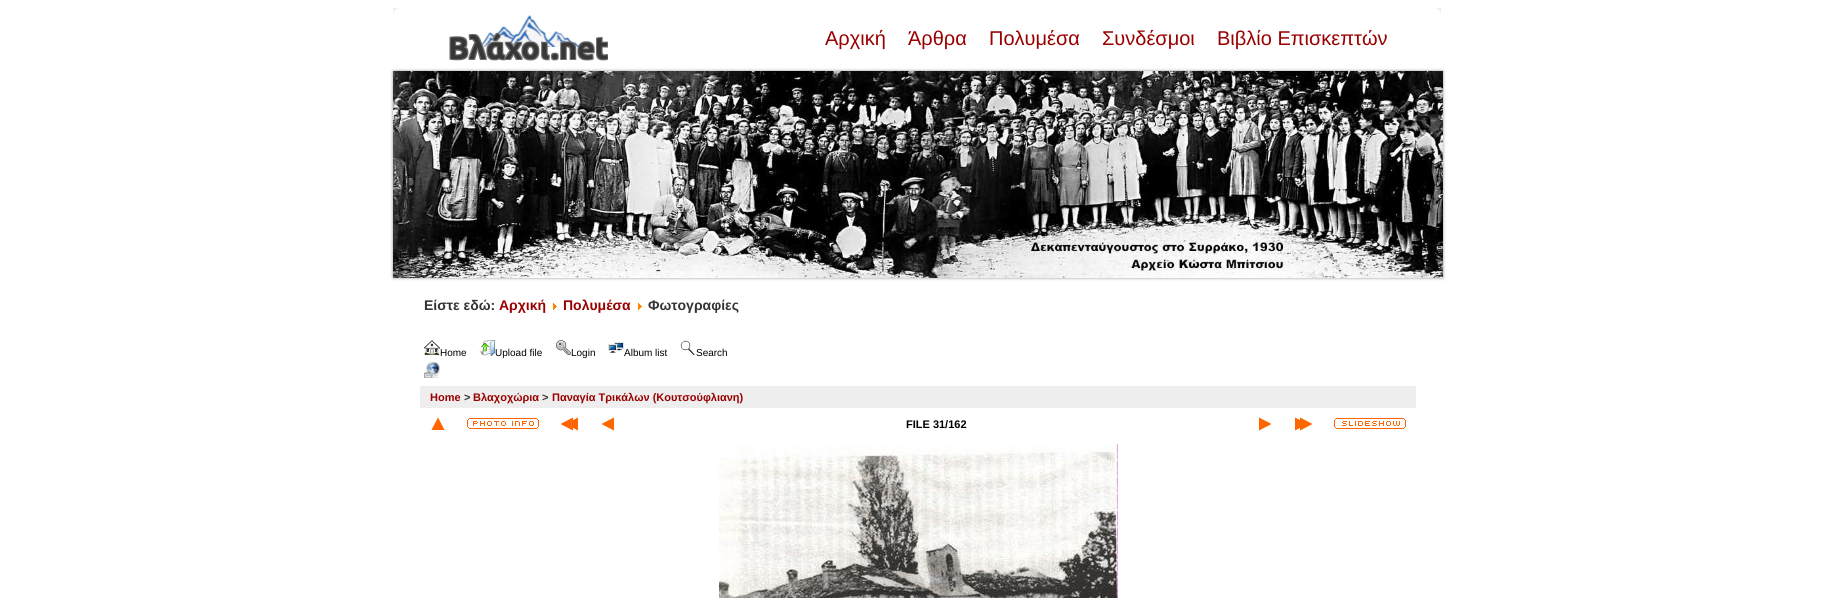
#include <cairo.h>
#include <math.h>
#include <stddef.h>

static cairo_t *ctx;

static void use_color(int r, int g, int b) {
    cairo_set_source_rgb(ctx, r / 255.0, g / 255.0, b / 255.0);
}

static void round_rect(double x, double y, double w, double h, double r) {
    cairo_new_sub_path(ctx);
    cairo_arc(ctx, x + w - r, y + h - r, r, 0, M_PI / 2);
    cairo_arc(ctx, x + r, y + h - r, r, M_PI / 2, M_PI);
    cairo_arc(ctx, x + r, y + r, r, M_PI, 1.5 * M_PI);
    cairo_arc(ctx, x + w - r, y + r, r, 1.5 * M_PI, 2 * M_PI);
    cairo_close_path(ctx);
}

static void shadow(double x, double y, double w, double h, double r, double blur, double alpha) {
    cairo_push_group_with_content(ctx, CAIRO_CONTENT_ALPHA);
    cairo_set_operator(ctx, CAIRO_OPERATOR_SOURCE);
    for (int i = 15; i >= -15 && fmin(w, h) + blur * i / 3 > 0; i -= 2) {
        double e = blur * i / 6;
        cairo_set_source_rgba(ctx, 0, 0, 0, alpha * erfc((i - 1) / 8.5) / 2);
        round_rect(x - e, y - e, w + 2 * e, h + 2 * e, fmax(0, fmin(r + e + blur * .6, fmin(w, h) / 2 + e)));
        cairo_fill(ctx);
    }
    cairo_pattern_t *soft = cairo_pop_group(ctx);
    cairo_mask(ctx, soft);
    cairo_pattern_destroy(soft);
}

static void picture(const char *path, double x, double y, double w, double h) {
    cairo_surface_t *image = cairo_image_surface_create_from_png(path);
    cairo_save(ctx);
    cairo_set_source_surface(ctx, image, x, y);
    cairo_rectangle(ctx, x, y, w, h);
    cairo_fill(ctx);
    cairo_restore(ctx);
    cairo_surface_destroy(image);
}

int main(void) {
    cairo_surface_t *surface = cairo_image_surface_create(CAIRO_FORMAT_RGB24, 1836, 598);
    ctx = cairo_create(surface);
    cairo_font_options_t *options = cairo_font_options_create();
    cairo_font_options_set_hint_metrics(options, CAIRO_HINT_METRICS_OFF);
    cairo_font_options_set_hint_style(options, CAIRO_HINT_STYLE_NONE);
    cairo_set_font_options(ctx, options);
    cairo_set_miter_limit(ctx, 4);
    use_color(255, 255, 255);
    cairo_paint(ctx);
    picture("img1.png", 393, 8, 6, 7);
    picture("img2.png", 1435, 8, 6, 7);
    picture("img3.png", 449, 15, 159, 46);
    cairo_select_font_face(ctx, "Liberation Sans", CAIRO_FONT_SLANT_NORMAL, CAIRO_FONT_WEIGHT_NORMAL);
    cairo_set_font_size(ctx, 20);
    use_color(153, 0, 0);
    cairo_move_to(ctx, 825, 45);
    cairo_show_text(ctx, "Αρχική");
    cairo_move_to(ctx, 908, 45);
    cairo_show_text(ctx, "Άρθρα");
    cairo_move_to(ctx, 989, 45);
    cairo_show_text(ctx, "Πολυμέσα");
    cairo_move_to(ctx, 1102, 45);
    cairo_show_text(ctx, "Συνδέσμοι");
    cairo_move_to(ctx, 1217, 45);
    cairo_show_text(ctx, "Βιβλίο Επισκεπτών");
    use_color(148, 147, 147);
    shadow(393, 71, 1050, 207, 0, 1.5, 1);
    picture("img4.png", 393, 71, 1050, 207);
    cairo_select_font_face(ctx, "Liberation Sans", CAIRO_FONT_SLANT_NORMAL, CAIRO_FONT_WEIGHT_BOLD);
    cairo_set_font_size(ctx, 14);
    use_color(51, 51, 51);
    cairo_move_to(ctx, 424, 310);
    cairo_show_text(ctx, "Είστε εδώ:");
    use_color(153, 0, 0);
    cairo_move_to(ctx, 499, 310);
    cairo_show_text(ctx, "Αρχική");
    picture("img5.png", 553, 303, 4, 7);
    cairo_move_to(ctx, 563, 310);
    cairo_show_text(ctx, "Πολυμέσα");
    picture("img5.png", 638, 303, 4, 7);
    use_color(51, 51, 51);
    cairo_move_to(ctx, 648, 310);
    cairo_show_text(ctx, "Φωτογραφίες");
    picture("img6.png", 424, 340, 16, 16);
    cairo_select_font_face(ctx, "Liberation Sans", CAIRO_FONT_SLANT_NORMAL, CAIRO_FONT_WEIGHT_NORMAL);
    cairo_set_font_size(ctx, 10);
    use_color(0, 0, 0);
    cairo_move_to(ctx, 440, 356);
    cairo_show_text(ctx, "Home");
    picture("img7.png", 479, 340, 16, 16);
    cairo_move_to(ctx, 495, 356);
    cairo_show_text(ctx, "Upload file");
    picture("img8.png", 556, 340, 15, 15);
    cairo_move_to(ctx, 571, 356);
    cairo_show_text(ctx, "Login");
    picture("img9.png", 608, 342, 16, 11);
    cairo_move_to(ctx, 624, 356);
    cairo_show_text(ctx, "Album list");
    picture("img10.png", 680, 340, 16, 15);
    cairo_move_to(ctx, 696, 356);
    cairo_show_text(ctx, "Search");
    picture("img11.png", 424, 362, 16, 16);
    use_color(238, 238, 238);
    cairo_rectangle(ctx, 420, 386, 996, 22);
    cairo_fill(ctx);
    cairo_select_font_face(ctx, "Liberation Sans", CAIRO_FONT_SLANT_NORMAL, CAIRO_FONT_WEIGHT_BOLD);
    cairo_set_font_size(ctx, 11);
    use_color(153, 0, 0);
    cairo_move_to(ctx, 430, 401);
    cairo_show_text(ctx, "Home");
    use_color(51, 51, 51);
    cairo_move_to(ctx, 464, 401);
    cairo_show_text(ctx, ">");
    use_color(153, 0, 0);
    cairo_move_to(ctx, 473, 401);
    cairo_show_text(ctx, "Βλαχοχώρια");
    use_color(51, 51, 51);
    cairo_move_to(ctx, 542, 401);
    cairo_show_text(ctx, ">");
    use_color(153, 0, 0);
    cairo_move_to(ctx, 552, 401);
    cairo_show_text(ctx, "Παναγία Τρικάλων (Κουτσούφλιανη)");
    picture("img12.png", 431, 417, 14, 13);
    picture("img13.png", 467, 418, 72, 11);
    picture("img14.png", 560, 417, 18, 14);
    picture("img15.png", 601, 417, 13, 14);
    use_color(0, 0, 0);
    cairo_move_to(ctx, 906, 428);
    cairo_show_text(ctx, "FILE 31/162");
    picture("img16.png", 1259, 417, 13, 14);
    picture("img17.png", 1295, 417, 18, 14);
    picture("img18.png", 1334, 418, 72, 11);
    picture("img19.png", 719, 444, 399, 154);
    cairo_surface_write_to_png(surface, "result.png");
    cairo_font_options_destroy(options);
    cairo_destroy(ctx);
    cairo_surface_destroy(surface);
    return 0;
}
